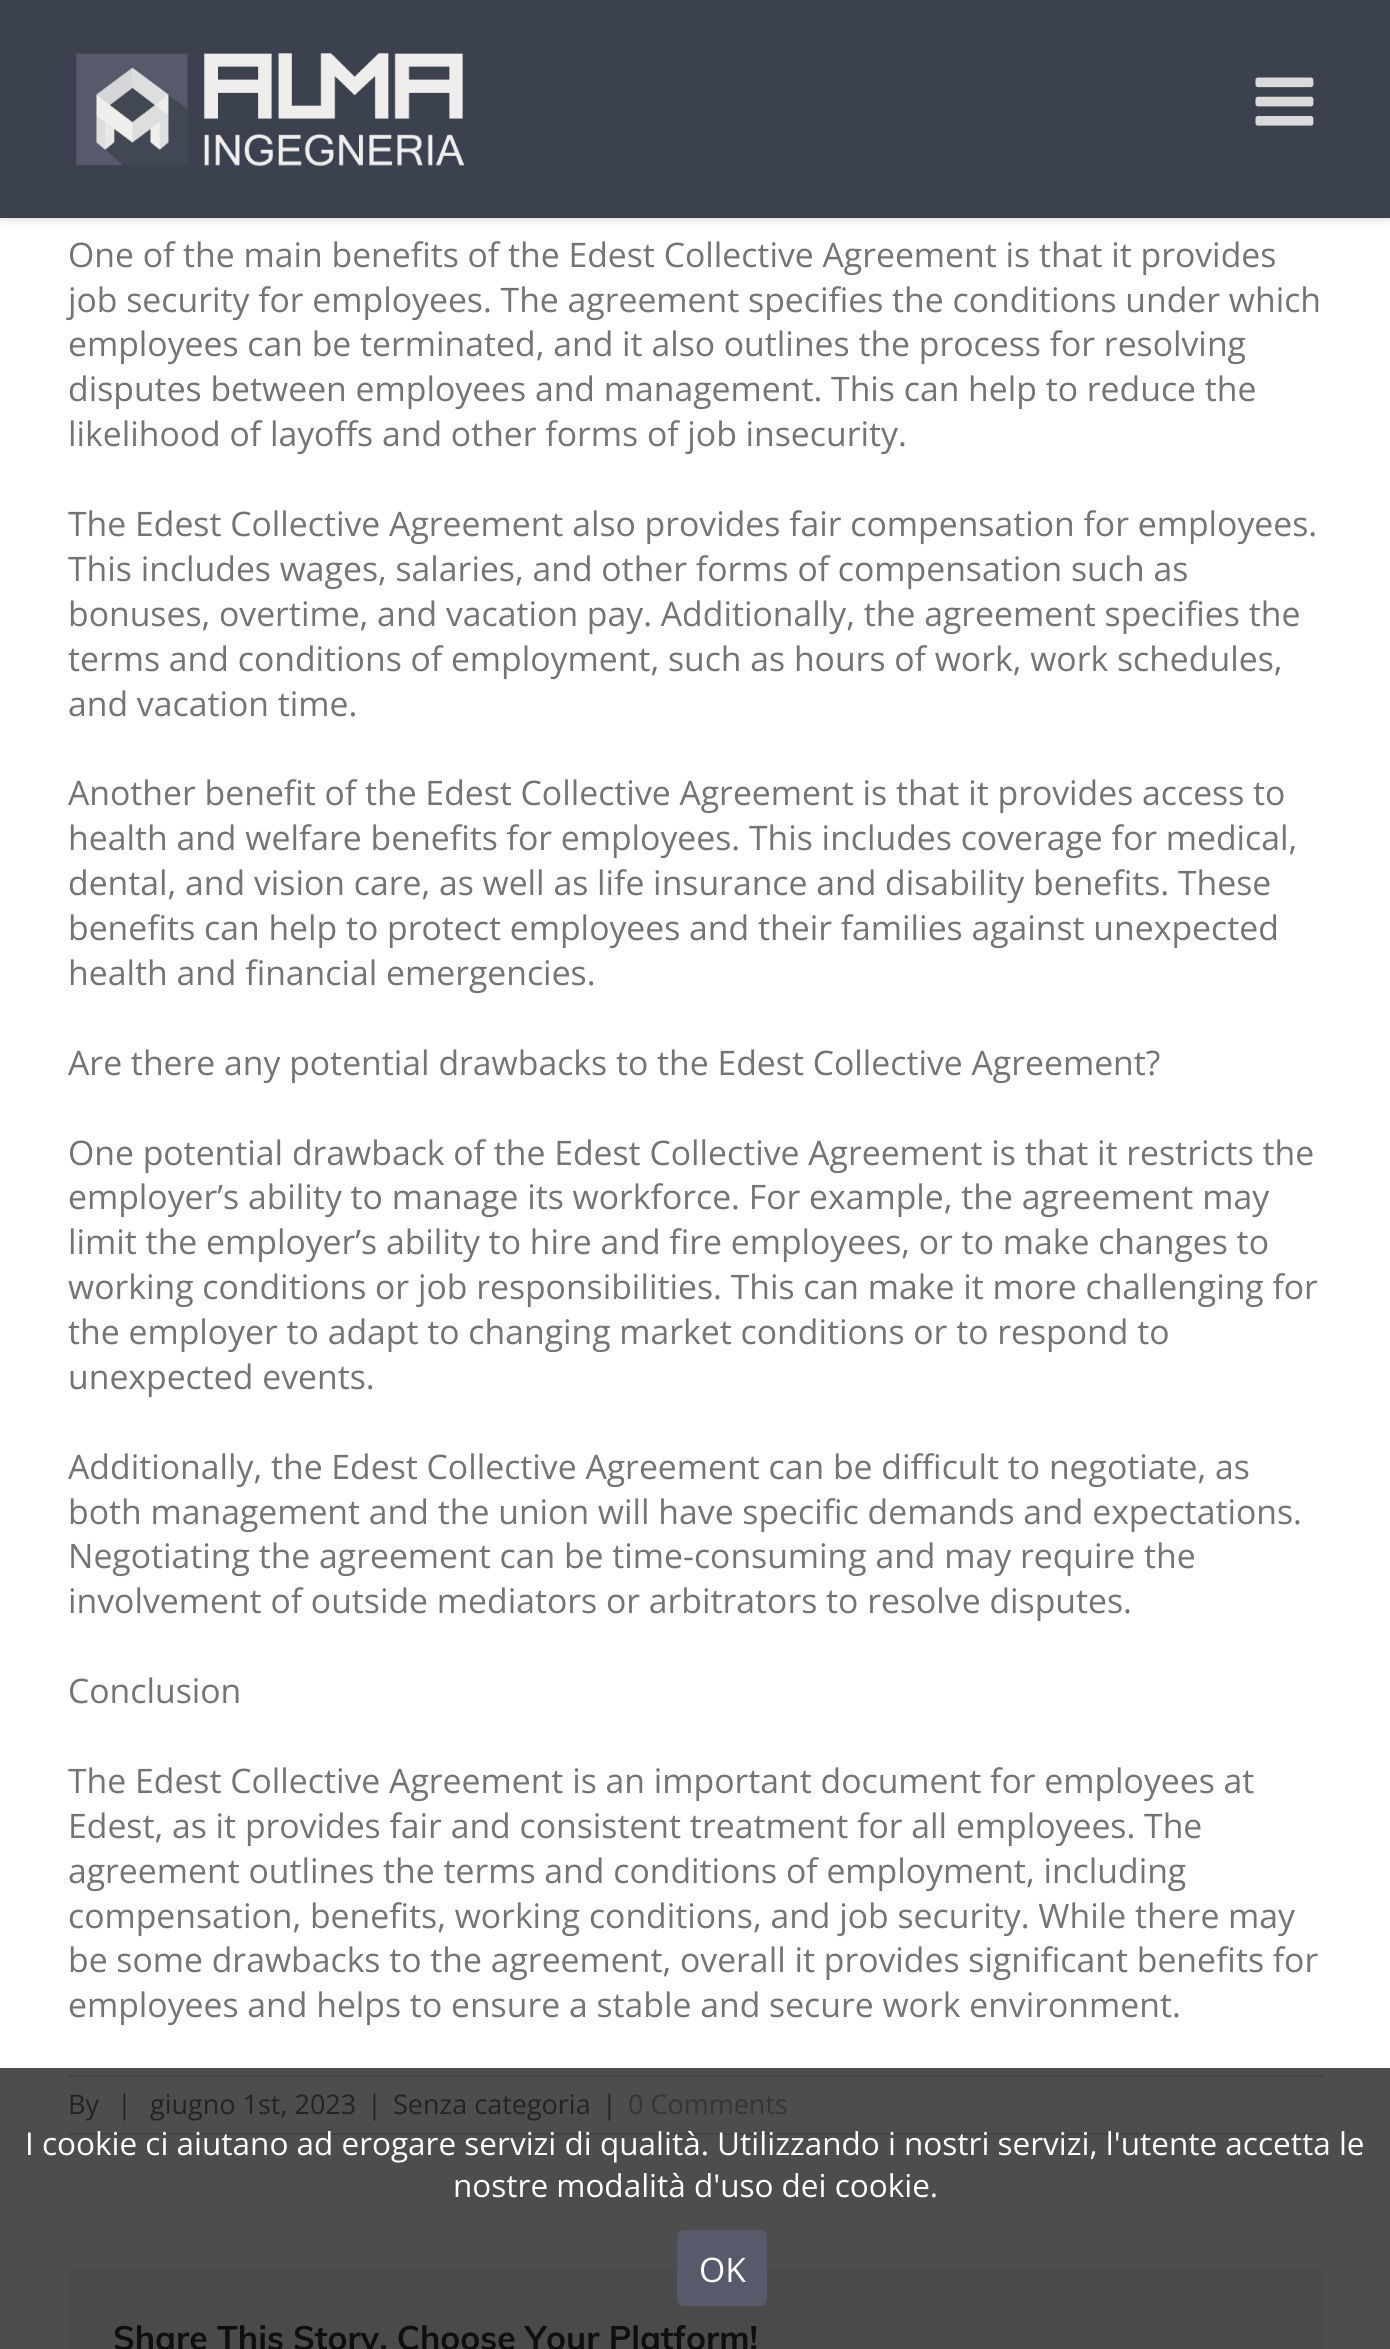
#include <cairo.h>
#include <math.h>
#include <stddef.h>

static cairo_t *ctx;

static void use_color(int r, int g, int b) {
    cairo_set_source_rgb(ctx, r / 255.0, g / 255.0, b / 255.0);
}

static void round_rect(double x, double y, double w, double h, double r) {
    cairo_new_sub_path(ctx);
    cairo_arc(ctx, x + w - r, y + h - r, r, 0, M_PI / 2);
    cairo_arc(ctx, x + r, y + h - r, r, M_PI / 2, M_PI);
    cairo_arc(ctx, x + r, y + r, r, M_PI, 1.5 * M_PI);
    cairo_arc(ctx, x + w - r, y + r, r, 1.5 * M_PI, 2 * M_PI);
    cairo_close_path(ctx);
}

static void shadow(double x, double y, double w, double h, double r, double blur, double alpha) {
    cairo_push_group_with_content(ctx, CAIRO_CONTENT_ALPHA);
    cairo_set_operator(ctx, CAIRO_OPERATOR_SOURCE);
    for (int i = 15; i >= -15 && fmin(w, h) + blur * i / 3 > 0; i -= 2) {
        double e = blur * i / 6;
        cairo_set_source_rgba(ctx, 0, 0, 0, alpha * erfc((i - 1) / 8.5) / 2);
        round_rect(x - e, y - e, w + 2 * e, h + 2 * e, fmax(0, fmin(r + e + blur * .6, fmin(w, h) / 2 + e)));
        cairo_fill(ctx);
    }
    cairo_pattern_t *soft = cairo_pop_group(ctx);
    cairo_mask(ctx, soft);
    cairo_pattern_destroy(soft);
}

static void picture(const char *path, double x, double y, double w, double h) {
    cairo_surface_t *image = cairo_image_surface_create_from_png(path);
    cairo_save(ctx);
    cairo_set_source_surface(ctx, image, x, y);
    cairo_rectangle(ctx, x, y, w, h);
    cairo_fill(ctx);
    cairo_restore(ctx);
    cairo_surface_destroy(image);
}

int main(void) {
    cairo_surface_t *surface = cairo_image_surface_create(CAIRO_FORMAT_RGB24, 1390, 2349);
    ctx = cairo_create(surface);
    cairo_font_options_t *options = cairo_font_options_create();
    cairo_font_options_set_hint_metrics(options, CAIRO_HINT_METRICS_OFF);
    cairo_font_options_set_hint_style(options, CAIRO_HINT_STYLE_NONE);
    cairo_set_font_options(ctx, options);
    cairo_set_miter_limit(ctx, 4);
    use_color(255, 255, 255);
    cairo_paint(ctx);
    use_color(77, 77, 77);
    cairo_rectangle(ctx, 0, 2068, 1390, 281);
    cairo_fill(ctx);
    use_color(0, 0, 0);
    shadow(0, 2, 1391, 219, 0, 3.5, 0.12);
    use_color(59, 65, 78);
    cairo_rectangle(ctx, 0, 0, 1390, 218);
    cairo_fill(ctx);
    picture("img1.png", 76, 53, 389, 114);
    picture("img2.png", 1255, 77, 59, 49);
    cairo_select_font_face(ctx, "Open Sans", CAIRO_FONT_SLANT_NORMAL, CAIRO_FONT_WEIGHT_NORMAL);
    cairo_set_font_size(ctx, 33.75);
    use_color(116, 116, 116);
    cairo_move_to(ctx, 68, 267);
    cairo_show_text(ctx, "One of the main benefits of the Edest Collective Agreement is that it provides");
    cairo_move_to(ctx, 68, 312);
    cairo_show_text(ctx, "job security for employees. The agreement specifies the conditions under which");
    cairo_move_to(ctx, 68, 356);
    cairo_show_text(ctx, "employees can be terminated, and it also outlines the process for resolving");
    cairo_move_to(ctx, 68, 401);
    cairo_show_text(ctx, "disputes between employees and management. This can help to reduce the");
    cairo_move_to(ctx, 68, 446);
    cairo_show_text(ctx, "likelihood of layoffs and other forms of job insecurity.");
    cairo_move_to(ctx, 68, 536);
    cairo_show_text(ctx, "The Edest Collective Agreement also provides fair compensation for employees.");
    cairo_move_to(ctx, 68, 581);
    cairo_show_text(ctx, "This includes wages, salaries, and other forms of compensation such as");
    cairo_move_to(ctx, 68, 626);
    cairo_show_text(ctx, "bonuses, overtime, and vacation pay. Additionally, the agreement specifies the");
    cairo_move_to(ctx, 68, 671);
    cairo_show_text(ctx, "terms and conditions of employment, such as hours of work, work schedules,");
    cairo_move_to(ctx, 68, 716);
    cairo_show_text(ctx, "and vacation time.");
    cairo_move_to(ctx, 68, 805);
    cairo_show_text(ctx, "Another benefit of the Edest Collective Agreement is that it provides access to");
    cairo_move_to(ctx, 68, 850);
    cairo_show_text(ctx, "health and welfare benefits for employees. This includes coverage for medical,");
    cairo_move_to(ctx, 68, 895);
    cairo_show_text(ctx, "dental, and vision care, as well as life insurance and disability benefits. These");
    cairo_move_to(ctx, 68, 940);
    cairo_show_text(ctx, "benefits can help to protect employees and their families against unexpected");
    cairo_move_to(ctx, 68, 985);
    cairo_show_text(ctx, "health and financial emergencies.");
    cairo_move_to(ctx, 68, 1075);
    cairo_show_text(ctx, "Are there any potential drawbacks to the Edest Collective Agreement?");
    cairo_move_to(ctx, 68, 1165);
    cairo_show_text(ctx, "One potential drawback of the Edest Collective Agreement is that it restricts the");
    cairo_move_to(ctx, 68, 1209);
    cairo_show_text(ctx, "employer’s ability to manage its workforce. For example, the agreement may");
    cairo_move_to(ctx, 68, 1254);
    cairo_show_text(ctx, "limit the employer’s ability to hire and fire employees, or to make changes to");
    cairo_move_to(ctx, 68, 1299);
    cairo_show_text(ctx, "working conditions or job responsibilities. This can make it more challenging for");
    cairo_move_to(ctx, 68, 1344);
    cairo_show_text(ctx, "the employer to adapt to changing market conditions or to respond to");
    cairo_move_to(ctx, 68, 1389);
    cairo_show_text(ctx, "unexpected events.");
    cairo_move_to(ctx, 68, 1479);
    cairo_show_text(ctx, "Additionally, the Edest Collective Agreement can be difficult to negotiate, as");
    cairo_move_to(ctx, 68, 1524);
    cairo_show_text(ctx, "both management and the union will have specific demands and expectations.");
    cairo_move_to(ctx, 68, 1568);
    cairo_show_text(ctx, "Negotiating the agreement can be time-consuming and may require the");
    cairo_move_to(ctx, 68, 1613);
    cairo_show_text(ctx, "involvement of outside mediators or arbitrators to resolve disputes.");
    cairo_move_to(ctx, 68, 1703);
    cairo_show_text(ctx, "Conclusion");
    cairo_move_to(ctx, 68, 1793);
    cairo_show_text(ctx, "The Edest Collective Agreement is an important document for employees at");
    cairo_move_to(ctx, 68, 1838);
    cairo_show_text(ctx, "Edest, as it provides fair and consistent treatment for all employees. The");
    cairo_move_to(ctx, 68, 1883);
    cairo_show_text(ctx, "agreement outlines the terms and conditions of employment, including");
    cairo_move_to(ctx, 68, 1928);
    cairo_show_text(ctx, "compensation, benefits, working conditions, and job security. While there may");
    cairo_move_to(ctx, 68, 1972);
    cairo_show_text(ctx, "be some drawbacks to the agreement, overall it provides significant benefits for");
    cairo_move_to(ctx, 68, 2017);
    cairo_show_text(ctx, "employees and helps to ensure a stable and secure work environment.");
    use_color(67, 67, 67);
    cairo_rectangle(ctx, 68, 2075, 1255, 2);
    cairo_fill(ctx);
    cairo_rectangle(ctx, 68, 2133, 1255, 2);
    cairo_fill(ctx);
    cairo_set_font_size(ctx, 27);
    use_color(35, 35, 35);
    cairo_move_to(ctx, 68, 2114);
    cairo_show_text(ctx, "By");
    cairo_move_to(ctx, 117, 2114);
    cairo_show_text(ctx, "|");
    cairo_move_to(ctx, 150, 2114);
    cairo_show_text(ctx, "giugno 1st, 2023");
    cairo_move_to(ctx, 367, 2114);
    cairo_show_text(ctx, "|");
    cairo_move_to(ctx, 393, 2114);
    cairo_show_text(ctx, "Senza categoria");
    cairo_move_to(ctx, 602, 2114);
    cairo_show_text(ctx, "|");
    use_color(53, 53, 52);
    cairo_move_to(ctx, 628, 2114);
    cairo_show_text(ctx, "0 Comments");
    use_color(74, 74, 74);
    cairo_rectangle(ctx, 68, 2270, 1255, 79);
    cairo_fill(ctx);
    cairo_select_font_face(ctx, "Muli", CAIRO_FONT_SLANT_NORMAL, CAIRO_FONT_WEIGHT_BOLD);
    cairo_set_font_size(ctx, 33.75);
    use_color(15, 15, 15);
    cairo_move_to(ctx, 113, 2350);
    cairo_show_text(ctx, "Share This Story, Choose Your Platform!");
    cairo_select_font_face(ctx, "Open Sans", CAIRO_FONT_SLANT_NORMAL, CAIRO_FONT_WEIGHT_NORMAL);
    cairo_set_font_size(ctx, 31.5);
    use_color(255, 255, 255);
    cairo_move_to(ctx, 25, 2155);
    cairo_show_text(ctx, "I cookie ci aiutano ad erogare servizi di qualità. Utilizzando i nostri servizi, l'utente accetta le");
    cairo_move_to(ctx, 453, 2197);
    cairo_show_text(ctx, "nostre modalità d'uso dei cookie.");
    use_color(86, 90, 106);
    round_rect(677, 2230, 90, 76, 7);
    cairo_fill(ctx);
    cairo_set_font_size(ctx, 33.75);
    use_color(255, 255, 255);
    cairo_move_to(ctx, 699, 2282);
    cairo_show_text(ctx, "OK");
    cairo_surface_write_to_png(surface, "result.png");
    cairo_font_options_destroy(options);
    cairo_destroy(ctx);
    cairo_surface_destroy(surface);
    return 0;
}
